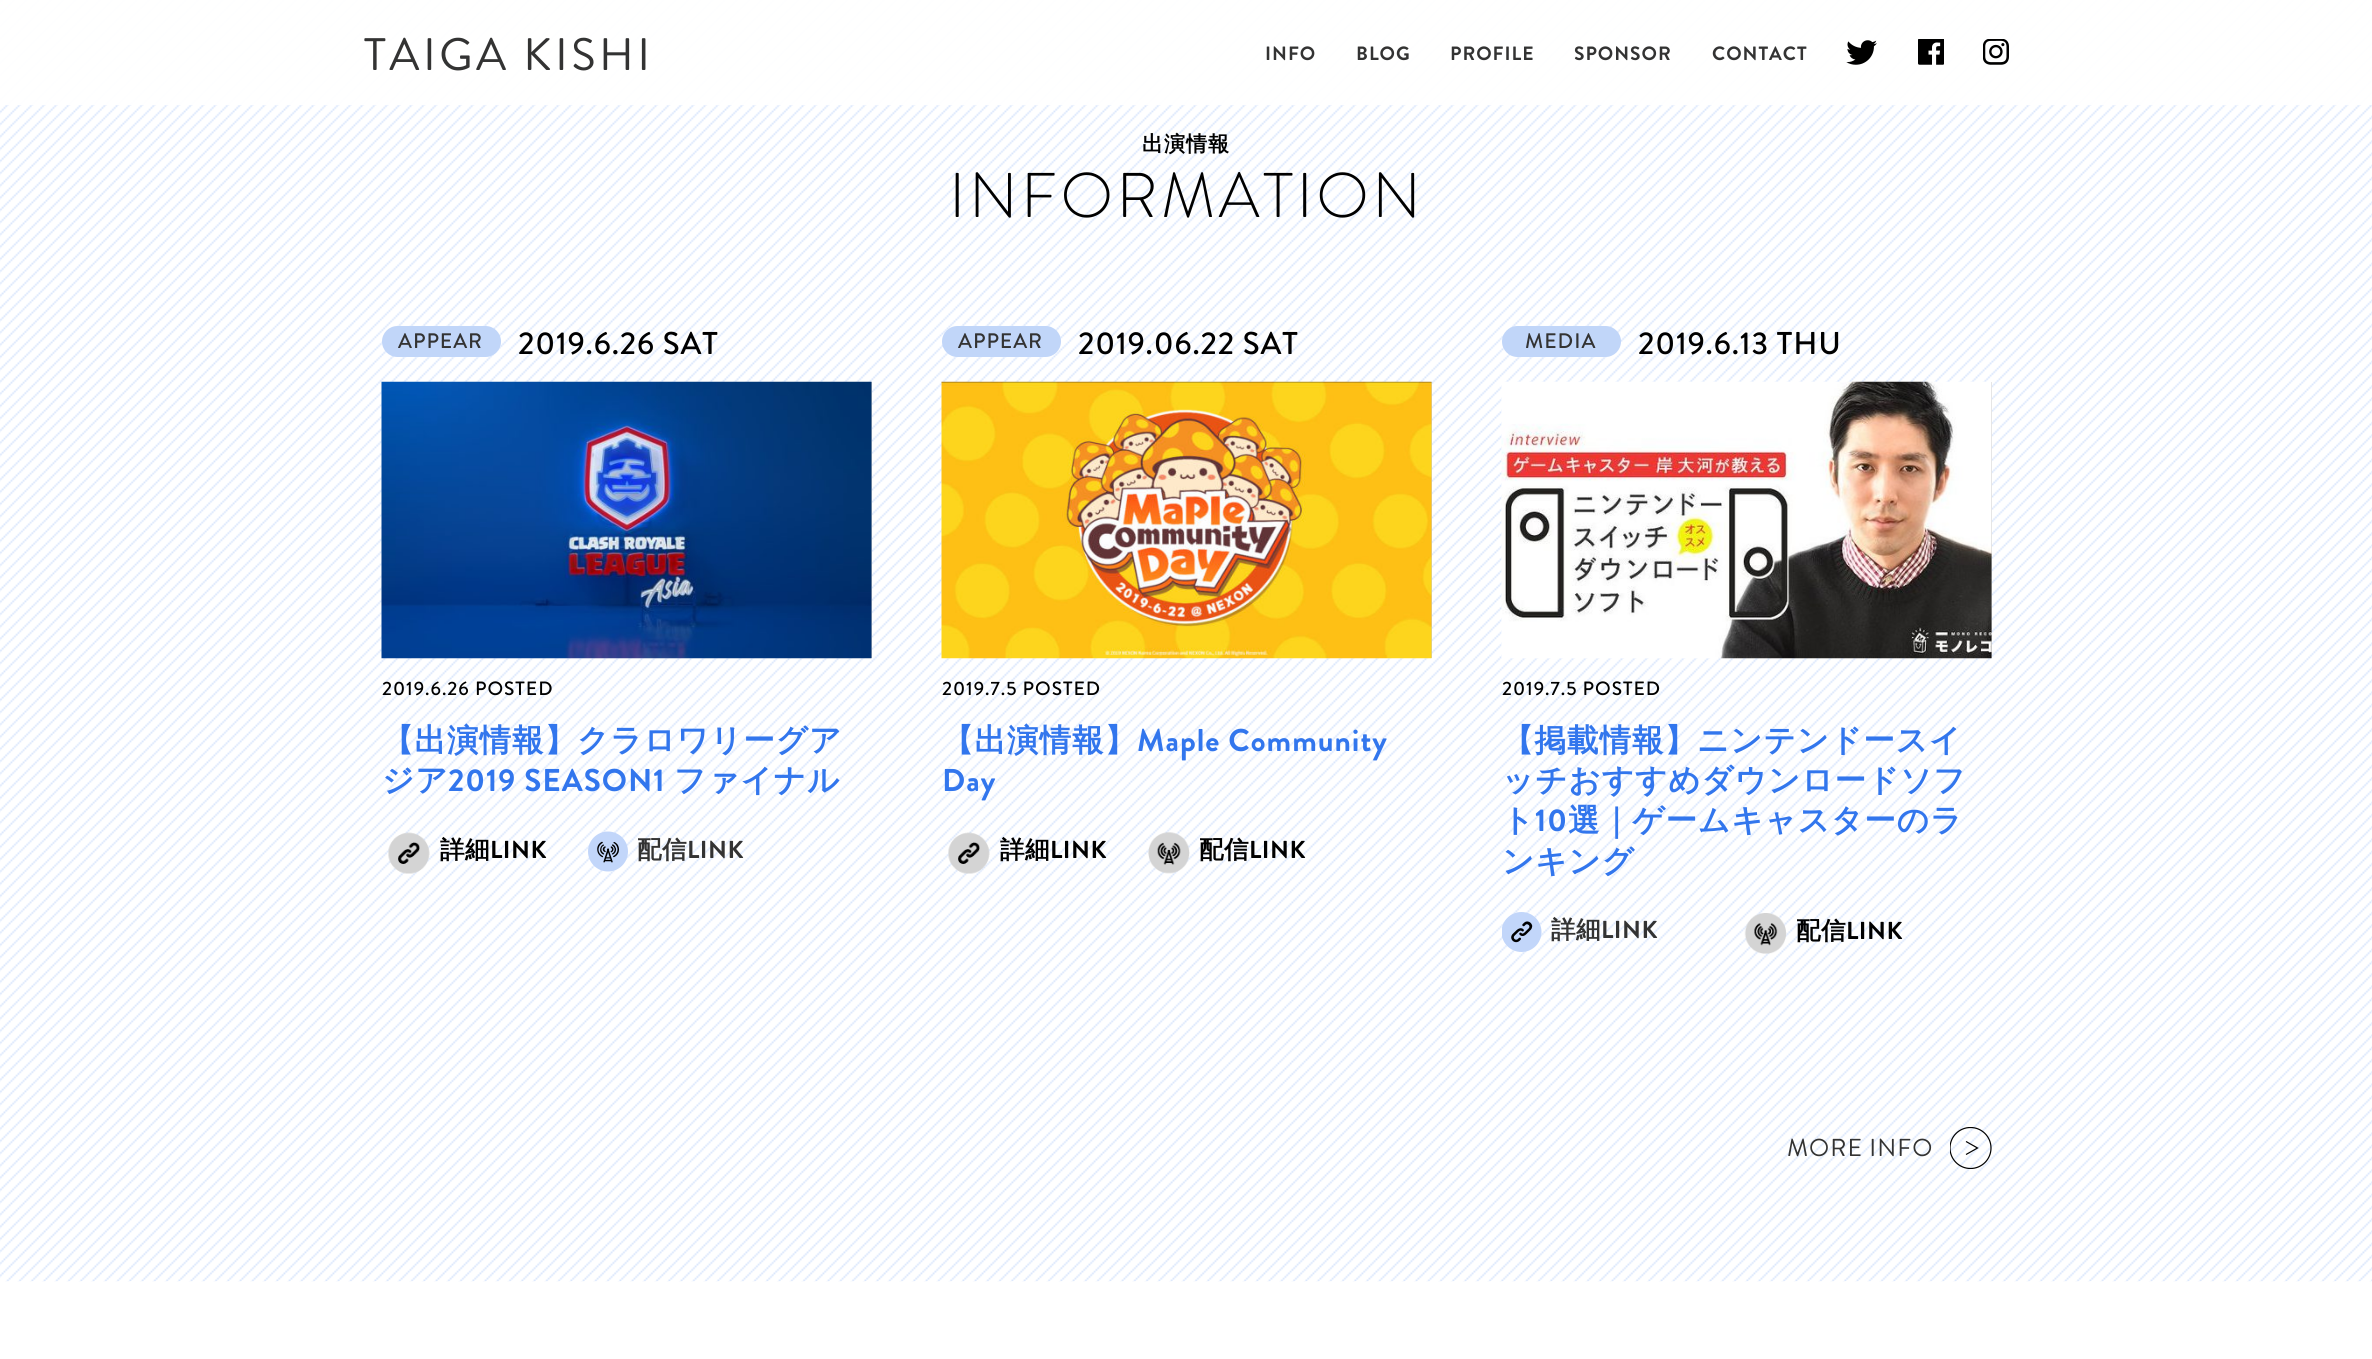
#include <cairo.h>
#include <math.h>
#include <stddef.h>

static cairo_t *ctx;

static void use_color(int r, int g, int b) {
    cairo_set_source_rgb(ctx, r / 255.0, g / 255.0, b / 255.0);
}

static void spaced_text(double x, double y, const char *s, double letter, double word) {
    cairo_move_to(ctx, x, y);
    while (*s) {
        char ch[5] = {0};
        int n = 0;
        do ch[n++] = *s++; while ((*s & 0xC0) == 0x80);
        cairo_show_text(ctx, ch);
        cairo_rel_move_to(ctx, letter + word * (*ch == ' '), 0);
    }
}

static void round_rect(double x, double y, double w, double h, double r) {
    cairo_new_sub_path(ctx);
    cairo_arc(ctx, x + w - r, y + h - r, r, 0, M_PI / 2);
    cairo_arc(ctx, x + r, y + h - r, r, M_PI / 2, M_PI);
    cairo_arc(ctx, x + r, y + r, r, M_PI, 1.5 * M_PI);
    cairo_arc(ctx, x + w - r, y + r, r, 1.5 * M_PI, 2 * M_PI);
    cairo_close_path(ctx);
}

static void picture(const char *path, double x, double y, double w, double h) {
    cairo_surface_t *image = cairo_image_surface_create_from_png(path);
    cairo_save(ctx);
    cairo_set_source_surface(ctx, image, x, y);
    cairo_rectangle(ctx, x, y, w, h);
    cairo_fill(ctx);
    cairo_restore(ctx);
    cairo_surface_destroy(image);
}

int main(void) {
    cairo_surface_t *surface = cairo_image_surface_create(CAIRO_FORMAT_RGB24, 2372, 1359);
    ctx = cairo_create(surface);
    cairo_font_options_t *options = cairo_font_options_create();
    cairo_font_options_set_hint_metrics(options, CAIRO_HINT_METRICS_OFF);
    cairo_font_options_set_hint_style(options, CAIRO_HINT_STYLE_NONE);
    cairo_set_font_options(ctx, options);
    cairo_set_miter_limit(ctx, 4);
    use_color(255, 255, 255);
    cairo_paint(ctx);
    picture("img4.png", 0, 0, 2372, 1282);
    cairo_set_source_rgba(ctx, 1, 1, 1, 0.95);
    cairo_rectangle(ctx, 0, 0, 2372, 105);
    cairo_fill(ctx);
    cairo_select_font_face(ctx, "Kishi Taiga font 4", CAIRO_FONT_SLANT_NORMAL, CAIRO_FONT_WEIGHT_NORMAL);
    cairo_set_font_size(ctx, 45.5);
    use_color(51, 51, 51);
    spaced_text(364, 70, "TAIGA KISHI", 3.5, 0);
    cairo_select_font_face(ctx, "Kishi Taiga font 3", CAIRO_FONT_SLANT_NORMAL, CAIRO_FONT_WEIGHT_NORMAL);
    cairo_set_font_size(ctx, 19.25);
    spaced_text(1265, 60, "INFO", 1, 0);
    spaced_text(1356, 60, "BLOG", 1, 0);
    spaced_text(1450, 60, "PROFILE", 1, 0);
    spaced_text(1574, 60, "SPONSOR", 1, 0);
    spaced_text(1712, 60, "CONTACT", 1, 0);
    picture("img1.png", 1846, 40, 31, 25);
    picture("img2.png", 1918, 39, 26, 26);
    picture("img3.png", 1983, 39, 26, 26);
    cairo_select_font_face(ctx, "WenQuanYi Zen Hei", CAIRO_FONT_SLANT_NORMAL, CAIRO_FONT_WEIGHT_BOLD);
    cairo_set_font_size(ctx, 21);
    use_color(0, 0, 0);
    spaced_text(1142, 151, "出演情報", 1, 0);
    cairo_select_font_face(ctx, "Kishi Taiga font", CAIRO_FONT_SLANT_NORMAL, CAIRO_FONT_WEIGHT_NORMAL);
    cairo_set_font_size(ctx, 63);
    spaced_text(949, 217, "INFORMATION", 3.5, 0);
    use_color(193, 214, 249);
    round_rect(382, 326, 119, 31, 15.5);
    cairo_fill(ctx);
    cairo_select_font_face(ctx, "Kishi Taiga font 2", CAIRO_FONT_SLANT_NORMAL, CAIRO_FONT_WEIGHT_NORMAL);
    cairo_set_font_size(ctx, 21);
    use_color(51, 51, 51);
    spaced_text(398, 348, "APPEAR", 1, 0);
    cairo_set_font_size(ctx, 31.5);
    use_color(0, 0, 0);
    spaced_text(518, 354, "2019.6.26 SAT", 0.9, 0);
    use_color(204, 204, 204);
    cairo_rectangle(ctx, 871, 382, 1, 276);
    cairo_fill(ctx);
    picture("img5.png", 381, 381, 491, 278);
    cairo_set_font_size(ctx, 19.25);
    use_color(0, 0, 0);
    spaced_text(382, 695, "2019.6.26 POSTED", 1, 0);
    cairo_select_font_face(ctx, "WenQuanYi Zen Hei", CAIRO_FONT_SLANT_NORMAL, CAIRO_FONT_WEIGHT_BOLD);
    cairo_set_font_size(ctx, 31.5);
    use_color(50, 118, 237);
    spaced_text(382, 751, "【出演情報】クラロワリーグア", 1, 0);
    spaced_text(382, 791, "ジア", 1, 0);
    cairo_select_font_face(ctx, "Kishi Taiga font 3", CAIRO_FONT_SLANT_NORMAL, CAIRO_FONT_WEIGHT_NORMAL);
    spaced_text(448, 791, "2019 SEASON1", 1, 0);
    cairo_select_font_face(ctx, "WenQuanYi Zen Hei", CAIRO_FONT_SLANT_NORMAL, CAIRO_FONT_WEIGHT_BOLD);
    spaced_text(674, 791, "ファイナル", 1, 0);
    picture("img6.png", 388, 832, 42, 42);
    cairo_set_font_size(ctx, 24.5);
    use_color(0, 0, 0);
    spaced_text(440, 858, "詳細", 0.5, 0);
    cairo_select_font_face(ctx, "Kishi Taiga font 3", CAIRO_FONT_SLANT_NORMAL, CAIRO_FONT_WEIGHT_NORMAL);
    spaced_text(490, 858, "LINK", 0.5, 0);
    picture("img7.png", 588, 831, 40, 41);
    cairo_select_font_face(ctx, "WenQuanYi Zen Hei", CAIRO_FONT_SLANT_NORMAL, CAIRO_FONT_WEIGHT_BOLD);
    use_color(51, 51, 51);
    spaced_text(637, 858, "配信", 0.5, 0);
    cairo_select_font_face(ctx, "Kishi Taiga font 3", CAIRO_FONT_SLANT_NORMAL, CAIRO_FONT_WEIGHT_NORMAL);
    spaced_text(687, 858, "LINK", 0.5, 0);
    use_color(193, 214, 249);
    round_rect(942, 326, 119, 31, 15.5);
    cairo_fill(ctx);
    cairo_select_font_face(ctx, "Kishi Taiga font 2", CAIRO_FONT_SLANT_NORMAL, CAIRO_FONT_WEIGHT_NORMAL);
    cairo_set_font_size(ctx, 21);
    use_color(51, 51, 51);
    spaced_text(958, 348, "APPEAR", 1, 0);
    cairo_set_font_size(ctx, 31.5);
    use_color(0, 0, 0);
    spaced_text(1078, 354, "2019.06.22 SAT", 0.9, 0);
    use_color(204, 204, 204);
    cairo_rectangle(ctx, 1431, 382, 1, 276);
    cairo_fill(ctx);
    picture("img8.png", 941, 381, 491, 278);
    cairo_set_font_size(ctx, 19.25);
    use_color(0, 0, 0);
    spaced_text(942, 695, "2019.7.5 POSTED", 1, 0);
    cairo_select_font_face(ctx, "WenQuanYi Zen Hei", CAIRO_FONT_SLANT_NORMAL, CAIRO_FONT_WEIGHT_BOLD);
    cairo_set_font_size(ctx, 31.5);
    use_color(50, 118, 237);
    spaced_text(942, 751, "【出演情報】", 1, 0);
    cairo_select_font_face(ctx, "Kishi Taiga font 3", CAIRO_FONT_SLANT_NORMAL, CAIRO_FONT_WEIGHT_NORMAL);
    spaced_text(1137, 751, "Maple Community", 1, 0);
    spaced_text(942, 791, "Day", 1, 0);
    picture("img9.png", 948, 832, 42, 42);
    cairo_select_font_face(ctx, "WenQuanYi Zen Hei", CAIRO_FONT_SLANT_NORMAL, CAIRO_FONT_WEIGHT_BOLD);
    cairo_set_font_size(ctx, 24.5);
    use_color(0, 0, 0);
    spaced_text(1000, 858, "詳細", 0.5, 0);
    cairo_select_font_face(ctx, "Kishi Taiga font 3", CAIRO_FONT_SLANT_NORMAL, CAIRO_FONT_WEIGHT_NORMAL);
    spaced_text(1050, 858, "LINK", 0.5, 0);
    picture("img10.png", 1148, 832, 42, 42);
    cairo_select_font_face(ctx, "WenQuanYi Zen Hei", CAIRO_FONT_SLANT_NORMAL, CAIRO_FONT_WEIGHT_BOLD);
    spaced_text(1199, 858, "配信", 0.5, 0);
    cairo_select_font_face(ctx, "Kishi Taiga font 3", CAIRO_FONT_SLANT_NORMAL, CAIRO_FONT_WEIGHT_NORMAL);
    spaced_text(1249, 858, "LINK", 0.5, 0);
    use_color(193, 214, 249);
    round_rect(1502, 326, 119, 31, 15.5);
    cairo_fill(ctx);
    cairo_select_font_face(ctx, "Kishi Taiga font 2", CAIRO_FONT_SLANT_NORMAL, CAIRO_FONT_WEIGHT_NORMAL);
    cairo_set_font_size(ctx, 21);
    use_color(51, 51, 51);
    spaced_text(1525, 348, "MEDIA", 1, 0);
    cairo_set_font_size(ctx, 31.5);
    use_color(0, 0, 0);
    spaced_text(1638, 354, "2019.6.13 THU", 0.9, 0);
    use_color(204, 204, 204);
    cairo_rectangle(ctx, 1991, 382, 1, 276);
    cairo_fill(ctx);
    picture("img11.png", 1501, 381, 491, 278);
    cairo_set_font_size(ctx, 19.25);
    use_color(0, 0, 0);
    spaced_text(1502, 695, "2019.7.5 POSTED", 1, 0);
    cairo_select_font_face(ctx, "WenQuanYi Zen Hei", CAIRO_FONT_SLANT_NORMAL, CAIRO_FONT_WEIGHT_BOLD);
    cairo_set_font_size(ctx, 31.5);
    use_color(50, 118, 237);
    spaced_text(1502, 751, "【掲載情報】ニンテンドースイ", 1, 0);
    spaced_text(1502, 791, "ッチおすすめダウンロードソフ", 1, 0);
    spaced_text(1502, 831, "ト", 1, 0);
    cairo_select_font_face(ctx, "Kishi Taiga font 3", CAIRO_FONT_SLANT_NORMAL, CAIRO_FONT_WEIGHT_NORMAL);
    spaced_text(1535, 831, "10", 1, 0);
    cairo_select_font_face(ctx, "WenQuanYi Zen Hei", CAIRO_FONT_SLANT_NORMAL, CAIRO_FONT_WEIGHT_BOLD);
    spaced_text(1568, 831, "選｜ゲームキャスターのラ", 1, 0);
    spaced_text(1502, 872, "ンキング", 1, 0);
    picture("img12.png", 1502, 912, 40, 40);
    cairo_set_font_size(ctx, 24.5);
    use_color(51, 51, 51);
    spaced_text(1551, 938, "詳細", 0.5, 0);
    cairo_select_font_face(ctx, "Kishi Taiga font 3", CAIRO_FONT_SLANT_NORMAL, CAIRO_FONT_WEIGHT_NORMAL);
    spaced_text(1601, 938, "LINK", 0.5, 0);
    picture("img13.png", 1744, 913, 43, 41);
    cairo_select_font_face(ctx, "WenQuanYi Zen Hei", CAIRO_FONT_SLANT_NORMAL, CAIRO_FONT_WEIGHT_BOLD);
    use_color(0, 0, 0);
    spaced_text(1796, 939, "配信", 0.5, 0);
    cairo_select_font_face(ctx, "Kishi Taiga font 3", CAIRO_FONT_SLANT_NORMAL, CAIRO_FONT_WEIGHT_NORMAL);
    spaced_text(1846, 939, "LINK", 0.5, 0);
    cairo_save(ctx);
    cairo_rectangle(ctx, 1950, 1127, 42, 42);
    cairo_clip(ctx);
    cairo_arc(ctx, 1970.5, 1148, 20.5, 0, 2 * M_PI);
    cairo_set_line_width(ctx, 1.2);
    cairo_stroke(ctx);
    cairo_restore(ctx);
    cairo_new_path(ctx);
    cairo_move_to(ctx, 1966, 1141.5);
    cairo_line_to(ctx, 1977.5, 1148);
    cairo_line_to(ctx, 1966, 1154.5);
    cairo_set_line_width(ctx, 1.2);
    cairo_stroke(ctx);
    cairo_select_font_face(ctx, "Kishi Taiga font 4", CAIRO_FONT_SLANT_NORMAL, CAIRO_FONT_WEIGHT_NORMAL);
    use_color(51, 51, 51);
    spaced_text(1787, 1156, "MORE INFO", 1, 0);
    cairo_surface_write_to_png(surface, "result.png");
    cairo_font_options_destroy(options);
    cairo_destroy(ctx);
    cairo_surface_destroy(surface);
    return 0;
}
